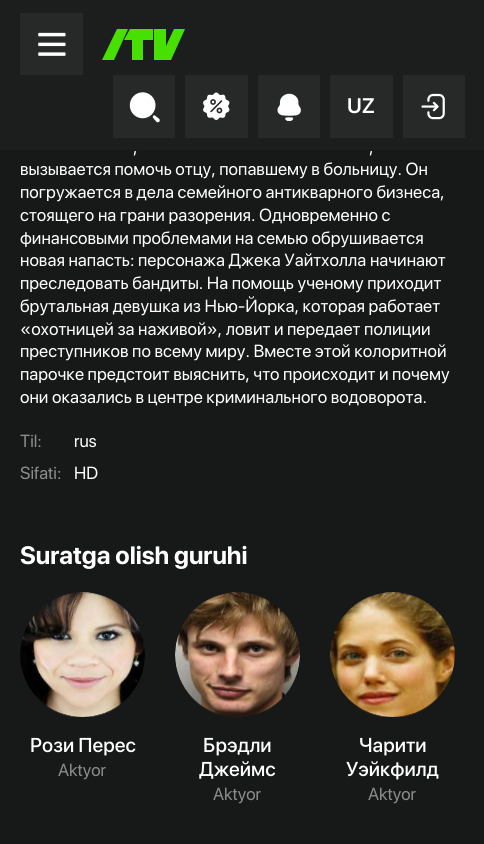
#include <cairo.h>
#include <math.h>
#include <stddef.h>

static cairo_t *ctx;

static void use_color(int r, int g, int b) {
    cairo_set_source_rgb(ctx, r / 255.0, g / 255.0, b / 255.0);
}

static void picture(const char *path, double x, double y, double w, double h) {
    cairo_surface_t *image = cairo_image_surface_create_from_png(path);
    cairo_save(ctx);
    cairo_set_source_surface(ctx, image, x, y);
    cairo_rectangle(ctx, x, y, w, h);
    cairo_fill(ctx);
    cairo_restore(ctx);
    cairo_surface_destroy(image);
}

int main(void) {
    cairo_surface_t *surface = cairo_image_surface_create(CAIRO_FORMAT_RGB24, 484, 844);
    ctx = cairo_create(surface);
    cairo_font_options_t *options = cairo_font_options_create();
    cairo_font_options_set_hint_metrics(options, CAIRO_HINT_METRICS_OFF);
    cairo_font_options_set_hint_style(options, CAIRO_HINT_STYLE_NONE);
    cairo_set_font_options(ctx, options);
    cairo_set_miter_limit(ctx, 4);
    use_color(23, 24, 24);
    cairo_paint(ctx);
    cairo_set_source_rgba(ctx, 0.114, 0.122, 0.118, 0.85);
    cairo_rectangle(ctx, 0, 0, 484, 150);
    cairo_fill(ctx);
    cairo_set_source_rgba(ctx, 1, 1, 1, 0.05);
    cairo_rectangle(ctx, 20, 13, 63, 62);
    cairo_fill(ctx);
    picture("img1.png", 38, 32, 28, 24);
    use_color(71, 224, 0);
    cairo_new_path(ctx);
    cairo_move_to(ctx, 185, 29);
    cairo_line_to(ctx, 171, 60);
    cairo_line_to(ctx, 154, 60);
    cairo_line_to(ctx, 154, 29);
    cairo_line_to(ctx, 166, 29);
    cairo_line_to(ctx, 166, 46);
    cairo_line_to(ctx, 174, 29);
    cairo_close_path(ctx);
    cairo_move_to(ctx, 102, 60);
    cairo_line_to(ctx, 114, 60);
    cairo_line_to(ctx, 128, 29);
    cairo_line_to(ctx, 117, 29);
    cairo_close_path(ctx);
    cairo_move_to(ctx, 153, 29);
    cairo_line_to(ctx, 130, 29);
    cairo_line_to(ctx, 124, 40);
    cairo_line_to(ctx, 132, 40);
    cairo_line_to(ctx, 132, 60);
    cairo_line_to(ctx, 143, 60);
    cairo_line_to(ctx, 143, 40);
    cairo_line_to(ctx, 153, 40);
    cairo_close_path(ctx);
    cairo_fill(ctx);
    cairo_set_source_rgba(ctx, 1, 1, 1, 0.05);
    cairo_rectangle(ctx, 113, 75, 62, 63);
    cairo_fill(ctx);
    picture("img2.png", 129, 92, 31, 31);
    cairo_rectangle(ctx, 185, 75, 63, 63);
    cairo_fill(ctx);
    picture("img3.png", 203, 92, 27, 28);
    cairo_rectangle(ctx, 258, 75, 62, 63);
    cairo_fill(ctx);
    picture("img4.png", 277, 93, 24, 28);
    cairo_rectangle(ctx, 330, 75, 63, 63);
    cairo_fill(ctx);
    cairo_select_font_face(ctx, "SF Pro Display SemiBold", CAIRO_FONT_SLANT_NORMAL, CAIRO_FONT_WEIGHT_NORMAL);
    cairo_set_font_size(ctx, 21);
    use_color(255, 255, 255);
    cairo_move_to(ctx, 347, 113);
    cairo_show_text(ctx, "UZ");
    cairo_set_source_rgba(ctx, 1, 1, 1, 0.05);
    cairo_rectangle(ctx, 403, 75, 62, 63);
    cairo_fill(ctx);
    picture("img5.png", 421, 93, 24, 27);
    cairo_select_font_face(ctx, "SF Pro Display", CAIRO_FONT_SLANT_NORMAL, CAIRO_FONT_WEIGHT_NORMAL);
    cairo_set_font_size(ctx, 17.5);
    use_color(255, 255, 255);
    cairo_move_to(ctx, 133, 153);
    cairo_show_text(ctx, ",");
    cairo_move_to(ctx, 369, 153);
    cairo_show_text(ctx, ",");
    cairo_move_to(ctx, 20, 175);
    cairo_show_text(ctx, "вызывается помочь отцу, попавшему в больницу. Он");
    cairo_move_to(ctx, 20, 198);
    cairo_show_text(ctx, "погружается в дела семейного антикварного бизнеса,");
    cairo_move_to(ctx, 20, 221);
    cairo_show_text(ctx, "стоящего на грани разорения. Одновременно с");
    cairo_move_to(ctx, 20, 244);
    cairo_show_text(ctx, "финансовыми проблемами на семью обрушивается");
    cairo_move_to(ctx, 20, 266);
    cairo_show_text(ctx, "новая напасть: персонажа Джека Уайтхолла начинают");
    cairo_move_to(ctx, 20, 289);
    cairo_show_text(ctx, "преследовать бандиты. На помощь ученому приходит");
    cairo_move_to(ctx, 20, 312);
    cairo_show_text(ctx, "брутальная девушка из Нью-Йорка, которая работает");
    cairo_move_to(ctx, 20, 335);
    cairo_show_text(ctx, "«охотницей за наживой», ловит и передает полиции");
    cairo_move_to(ctx, 20, 357);
    cairo_show_text(ctx, "преступников по всему миру. Вместе этой колоритной");
    cairo_move_to(ctx, 20, 380);
    cairo_show_text(ctx, "парочке предстоит выяснить, что происходит и почему");
    cairo_move_to(ctx, 20, 403);
    cairo_show_text(ctx, "они оказались в центре криминального водоворота.");
    use_color(139, 140, 140);
    cairo_move_to(ctx, 20, 447);
    cairo_show_text(ctx, "Til:");
    use_color(255, 255, 255);
    cairo_move_to(ctx, 74, 447);
    cairo_show_text(ctx, "rus");
    use_color(139, 140, 140);
    cairo_move_to(ctx, 20, 479);
    cairo_show_text(ctx, "Sifati:");
    use_color(255, 255, 255);
    cairo_move_to(ctx, 74, 479);
    cairo_show_text(ctx, "HD");
    cairo_select_font_face(ctx, "SF Pro Display", CAIRO_FONT_SLANT_NORMAL, CAIRO_FONT_WEIGHT_BOLD);
    cairo_set_font_size(ctx, 25);
    cairo_move_to(ctx, 20, 564);
    cairo_show_text(ctx, "Suratga olish guruhi");
    picture("img6.png", 20, 592, 125, 125);
    cairo_select_font_face(ctx, "SF Pro Display Medium", CAIRO_FONT_SLANT_NORMAL, CAIRO_FONT_WEIGHT_NORMAL);
    cairo_set_font_size(ctx, 20);
    cairo_move_to(ctx, 30, 752);
    cairo_show_text(ctx, "Рози Перес");
    cairo_select_font_face(ctx, "SF Pro Display", CAIRO_FONT_SLANT_NORMAL, CAIRO_FONT_WEIGHT_NORMAL);
    cairo_set_font_size(ctx, 17.5);
    use_color(139, 140, 140);
    cairo_move_to(ctx, 58, 776);
    cairo_show_text(ctx, "Aktyor");
    picture("img7.png", 175, 592, 125, 125);
    cairo_select_font_face(ctx, "SF Pro Display Medium", CAIRO_FONT_SLANT_NORMAL, CAIRO_FONT_WEIGHT_NORMAL);
    cairo_set_font_size(ctx, 20);
    use_color(255, 255, 255);
    cairo_move_to(ctx, 203, 752);
    cairo_show_text(ctx, "Брэдли");
    cairo_move_to(ctx, 199, 776);
    cairo_show_text(ctx, "Джеймс");
    cairo_select_font_face(ctx, "SF Pro Display", CAIRO_FONT_SLANT_NORMAL, CAIRO_FONT_WEIGHT_NORMAL);
    cairo_set_font_size(ctx, 17.5);
    use_color(139, 140, 140);
    cairo_move_to(ctx, 213, 800);
    cairo_show_text(ctx, "Aktyor");
    picture("img8.png", 330, 592, 125, 125);
    cairo_select_font_face(ctx, "SF Pro Display Medium", CAIRO_FONT_SLANT_NORMAL, CAIRO_FONT_WEIGHT_NORMAL);
    cairo_set_font_size(ctx, 20);
    use_color(255, 255, 255);
    cairo_move_to(ctx, 359, 752);
    cairo_show_text(ctx, "Чарити");
    cairo_move_to(ctx, 346, 776);
    cairo_show_text(ctx, "Уэйкфилд");
    cairo_select_font_face(ctx, "SF Pro Display", CAIRO_FONT_SLANT_NORMAL, CAIRO_FONT_WEIGHT_NORMAL);
    cairo_set_font_size(ctx, 17.5);
    use_color(139, 140, 140);
    cairo_move_to(ctx, 368, 800);
    cairo_show_text(ctx, "Aktyor");
    cairo_surface_write_to_png(surface, "result.png");
    cairo_font_options_destroy(options);
    cairo_destroy(ctx);
    cairo_surface_destroy(surface);
    return 0;
}
